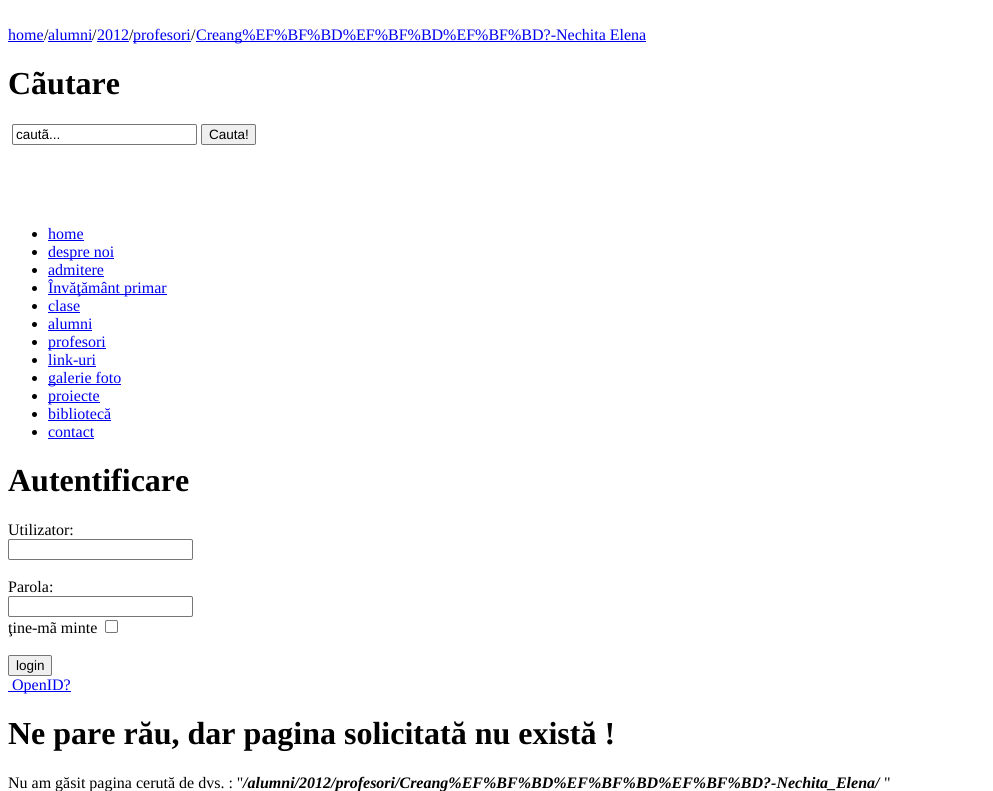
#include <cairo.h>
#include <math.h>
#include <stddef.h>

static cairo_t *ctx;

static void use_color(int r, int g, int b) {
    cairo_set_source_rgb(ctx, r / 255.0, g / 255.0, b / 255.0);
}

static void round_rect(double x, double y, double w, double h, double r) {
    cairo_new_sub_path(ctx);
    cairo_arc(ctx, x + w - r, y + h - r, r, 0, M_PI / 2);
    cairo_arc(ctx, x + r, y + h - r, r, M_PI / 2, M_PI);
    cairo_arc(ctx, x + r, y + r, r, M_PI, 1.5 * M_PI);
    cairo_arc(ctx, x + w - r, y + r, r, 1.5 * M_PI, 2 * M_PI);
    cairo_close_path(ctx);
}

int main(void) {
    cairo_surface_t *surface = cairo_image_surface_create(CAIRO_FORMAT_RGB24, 993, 791);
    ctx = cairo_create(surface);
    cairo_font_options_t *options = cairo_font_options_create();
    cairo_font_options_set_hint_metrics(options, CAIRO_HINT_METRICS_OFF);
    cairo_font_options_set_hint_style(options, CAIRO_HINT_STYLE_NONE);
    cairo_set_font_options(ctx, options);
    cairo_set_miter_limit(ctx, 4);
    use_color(255, 255, 255);
    cairo_paint(ctx);
    cairo_select_font_face(ctx, "Liberation Serif", CAIRO_FONT_SLANT_NORMAL, CAIRO_FONT_WEIGHT_NORMAL);
    cairo_set_font_size(ctx, 16);
    use_color(0, 0, 238);
    cairo_move_to(ctx, 8, 40);
    cairo_show_text(ctx, "home");
    cairo_rectangle(ctx, 8, 41, 36, 1);
    cairo_fill(ctx);
    use_color(0, 0, 0);
    cairo_move_to(ctx, 44, 40);
    cairo_show_text(ctx, "/");
    use_color(0, 0, 238);
    cairo_move_to(ctx, 48, 40);
    cairo_show_text(ctx, "alumni");
    cairo_rectangle(ctx, 48, 41, 44, 1);
    cairo_fill(ctx);
    use_color(0, 0, 0);
    cairo_move_to(ctx, 92, 40);
    cairo_show_text(ctx, "/");
    use_color(0, 0, 238);
    cairo_move_to(ctx, 97, 40);
    cairo_show_text(ctx, "2012");
    cairo_rectangle(ctx, 97, 41, 32, 1);
    cairo_fill(ctx);
    use_color(0, 0, 0);
    cairo_move_to(ctx, 129, 40);
    cairo_show_text(ctx, "/");
    use_color(0, 0, 238);
    cairo_rectangle(ctx, 133, 41, 58, 1);
    cairo_fill(ctx);
    cairo_move_to(ctx, 133, 40);
    cairo_show_text(ctx, "profesori");
    use_color(0, 0, 0);
    cairo_move_to(ctx, 191, 40);
    cairo_show_text(ctx, "/");
    use_color(0, 0, 238);
    cairo_rectangle(ctx, 196, 41, 450, 1);
    cairo_fill(ctx);
    cairo_move_to(ctx, 196, 40);
    cairo_show_text(ctx, "Creang%EF%BF%BD%EF%BF%BD%EF%BF%BD?-Nechita Elena");
    cairo_select_font_face(ctx, "Liberation Serif", CAIRO_FONT_SLANT_NORMAL, CAIRO_FONT_WEIGHT_BOLD);
    cairo_set_font_size(ctx, 32);
    use_color(0, 0, 0);
    cairo_move_to(ctx, 8, 94);
    cairo_show_text(ctx, "Cãutare");
    round_rect(12.5, 124.5, 184, 20, 1.5);
    use_color(118, 118, 118);
    cairo_set_line_width(ctx, 1);
    cairo_stroke(ctx);
    cairo_select_font_face(ctx, "Liberation Sans", CAIRO_FONT_SLANT_NORMAL, CAIRO_FONT_WEIGHT_NORMAL);
    cairo_set_font_size(ctx, 13.5);
    use_color(0, 0, 0);
    cairo_move_to(ctx, 16, 139);
    cairo_show_text(ctx, "cautã...");
    use_color(239, 239, 239);
    round_rect(201.5, 124.5, 54, 20, 1.5);
    cairo_fill_preserve(ctx);
    use_color(118, 118, 118);
    cairo_stroke(ctx);
    use_color(0, 0, 0);
    cairo_move_to(ctx, 209, 139);
    cairo_show_text(ctx, "Cauta!");
    cairo_new_path(ctx);
    cairo_arc(ctx, 34.5, 234.5, 2.5, 0, 2 * M_PI);
    cairo_fill(ctx);
    cairo_select_font_face(ctx, "Liberation Serif", CAIRO_FONT_SLANT_NORMAL, CAIRO_FONT_WEIGHT_NORMAL);
    cairo_set_font_size(ctx, 16);
    use_color(0, 0, 238);
    cairo_move_to(ctx, 48, 239);
    cairo_show_text(ctx, "home");
    cairo_rectangle(ctx, 48, 240, 36, 1);
    cairo_fill(ctx);
    use_color(0, 0, 0);
    cairo_arc(ctx, 34.5, 252.5, 2.5, 0, 2 * M_PI);
    cairo_fill(ctx);
    use_color(0, 0, 238);
    cairo_rectangle(ctx, 48, 258, 66, 1);
    cairo_fill(ctx);
    cairo_move_to(ctx, 48, 257);
    cairo_show_text(ctx, "despre noi");
    use_color(0, 0, 0);
    cairo_new_path(ctx);
    cairo_arc(ctx, 34.5, 270.5, 2.5, 0, 2 * M_PI);
    cairo_fill(ctx);
    use_color(0, 0, 238);
    cairo_move_to(ctx, 48, 275);
    cairo_show_text(ctx, "admitere");
    cairo_rectangle(ctx, 48, 276, 56, 1);
    cairo_fill(ctx);
    use_color(0, 0, 0);
    cairo_arc(ctx, 34.5, 288.5, 2.5, 0, 2 * M_PI);
    cairo_fill(ctx);
    use_color(0, 0, 238);
    cairo_rectangle(ctx, 48, 294, 119, 1);
    cairo_fill(ctx);
    cairo_move_to(ctx, 48, 293);
    cairo_show_text(ctx, "Învăţământ primar");
    use_color(0, 0, 0);
    cairo_new_path(ctx);
    cairo_arc(ctx, 34.5, 306.5, 2.5, 0, 2 * M_PI);
    cairo_fill(ctx);
    use_color(0, 0, 238);
    cairo_move_to(ctx, 48, 311);
    cairo_show_text(ctx, "clase");
    cairo_rectangle(ctx, 48, 312, 32, 1);
    cairo_fill(ctx);
    use_color(0, 0, 0);
    cairo_arc(ctx, 34.5, 324.5, 2.5, 0, 2 * M_PI);
    cairo_fill(ctx);
    use_color(0, 0, 238);
    cairo_move_to(ctx, 48, 329);
    cairo_show_text(ctx, "alumni");
    cairo_rectangle(ctx, 48, 330, 44, 1);
    cairo_fill(ctx);
    use_color(0, 0, 0);
    cairo_arc(ctx, 34.5, 342.5, 2.5, 0, 2 * M_PI);
    cairo_fill(ctx);
    use_color(0, 0, 238);
    cairo_rectangle(ctx, 48, 348, 58, 1);
    cairo_fill(ctx);
    cairo_move_to(ctx, 48, 347);
    cairo_show_text(ctx, "profesori");
    use_color(0, 0, 0);
    cairo_new_path(ctx);
    cairo_arc(ctx, 34.5, 360.5, 2.5, 0, 2 * M_PI);
    cairo_fill(ctx);
    use_color(0, 0, 238);
    cairo_move_to(ctx, 48, 365);
    cairo_show_text(ctx, "link-uri");
    cairo_rectangle(ctx, 48, 366, 48, 1);
    cairo_fill(ctx);
    use_color(0, 0, 0);
    cairo_arc(ctx, 34.5, 378.5, 2.5, 0, 2 * M_PI);
    cairo_fill(ctx);
    use_color(0, 0, 238);
    cairo_rectangle(ctx, 48, 384, 73, 1);
    cairo_fill(ctx);
    cairo_move_to(ctx, 48, 383);
    cairo_show_text(ctx, "galerie foto");
    use_color(0, 0, 0);
    cairo_new_path(ctx);
    cairo_arc(ctx, 34.5, 396.5, 2.5, 0, 2 * M_PI);
    cairo_fill(ctx);
    use_color(0, 0, 238);
    cairo_rectangle(ctx, 48, 402, 52, 1);
    cairo_fill(ctx);
    cairo_move_to(ctx, 48, 401);
    cairo_show_text(ctx, "proiecte");
    use_color(0, 0, 0);
    cairo_new_path(ctx);
    cairo_arc(ctx, 34.5, 414.5, 2.5, 0, 2 * M_PI);
    cairo_fill(ctx);
    use_color(0, 0, 238);
    cairo_move_to(ctx, 48, 419);
    cairo_show_text(ctx, "bibliotecă");
    cairo_rectangle(ctx, 48, 420, 63, 1);
    cairo_fill(ctx);
    use_color(0, 0, 0);
    cairo_arc(ctx, 34.5, 432.5, 2.5, 0, 2 * M_PI);
    cairo_fill(ctx);
    use_color(0, 0, 238);
    cairo_move_to(ctx, 48, 437);
    cairo_show_text(ctx, "contact");
    cairo_rectangle(ctx, 48, 438, 46, 1);
    cairo_fill(ctx);
    cairo_select_font_face(ctx, "Liberation Serif", CAIRO_FONT_SLANT_NORMAL, CAIRO_FONT_WEIGHT_BOLD);
    cairo_set_font_size(ctx, 32);
    use_color(0, 0, 0);
    cairo_move_to(ctx, 8, 491);
    cairo_show_text(ctx, "Autentificare");
    cairo_select_font_face(ctx, "Liberation Serif", CAIRO_FONT_SLANT_NORMAL, CAIRO_FONT_WEIGHT_NORMAL);
    cairo_set_font_size(ctx, 16);
    cairo_move_to(ctx, 8, 535);
    cairo_show_text(ctx, "Utilizator:");
    round_rect(8.5, 539.5, 184, 20, 1.5);
    use_color(118, 118, 118);
    cairo_stroke(ctx);
    use_color(0, 0, 0);
    cairo_move_to(ctx, 8, 592);
    cairo_show_text(ctx, "Parola:");
    round_rect(8.5, 596.5, 184, 20, 1.5);
    use_color(118, 118, 118);
    cairo_stroke(ctx);
    use_color(0, 0, 0);
    cairo_move_to(ctx, 8, 633);
    cairo_show_text(ctx, "ţine-mã minte");
    round_rect(105.5, 620.5, 12, 12, 1.5);
    use_color(118, 118, 118);
    cairo_stroke(ctx);
    use_color(239, 239, 239);
    round_rect(8.5, 655.5, 43, 20, 1.5);
    cairo_fill_preserve(ctx);
    use_color(118, 118, 118);
    cairo_stroke(ctx);
    cairo_select_font_face(ctx, "Liberation Sans", CAIRO_FONT_SLANT_NORMAL, CAIRO_FONT_WEIGHT_NORMAL);
    cairo_set_font_size(ctx, 13.5);
    use_color(0, 0, 0);
    cairo_move_to(ctx, 16, 670);
    cairo_show_text(ctx, "login");
    use_color(0, 0, 238);
    cairo_rectangle(ctx, 8, 691, 63, 1);
    cairo_fill(ctx);
    cairo_select_font_face(ctx, "Liberation Serif", CAIRO_FONT_SLANT_NORMAL, CAIRO_FONT_WEIGHT_NORMAL);
    cairo_set_font_size(ctx, 16);
    cairo_move_to(ctx, 12, 690);
    cairo_show_text(ctx, "OpenID?");
    cairo_select_font_face(ctx, "Liberation Serif", CAIRO_FONT_SLANT_NORMAL, CAIRO_FONT_WEIGHT_BOLD);
    cairo_set_font_size(ctx, 32);
    use_color(0, 0, 0);
    cairo_move_to(ctx, 8, 744);
    cairo_show_text(ctx, "Ne pare rău, dar pagina solicitată nu există !");
    cairo_select_font_face(ctx, "Liberation Serif", CAIRO_FONT_SLANT_NORMAL, CAIRO_FONT_WEIGHT_NORMAL);
    cairo_set_font_size(ctx, 16);
    cairo_move_to(ctx, 8, 788);
    cairo_show_text(ctx, "Nu am găsit pagina cerută de dvs. : \"");
    cairo_select_font_face(ctx, "Liberation Serif", CAIRO_FONT_SLANT_ITALIC, CAIRO_FONT_WEIGHT_BOLD);
    cairo_move_to(ctx, 243, 788);
    cairo_show_text(ctx, "/alumni/2012/profesori/Creang%EF%BF%BD%EF%BF%BD%EF%BF%BD?-Nechita_Elena/");
    cairo_select_font_face(ctx, "Liberation Serif", CAIRO_FONT_SLANT_NORMAL, CAIRO_FONT_WEIGHT_NORMAL);
    cairo_move_to(ctx, 884, 788);
    cairo_show_text(ctx, "\"");
    cairo_surface_write_to_png(surface, "result.png");
    cairo_font_options_destroy(options);
    cairo_destroy(ctx);
    cairo_surface_destroy(surface);
    return 0;
}
